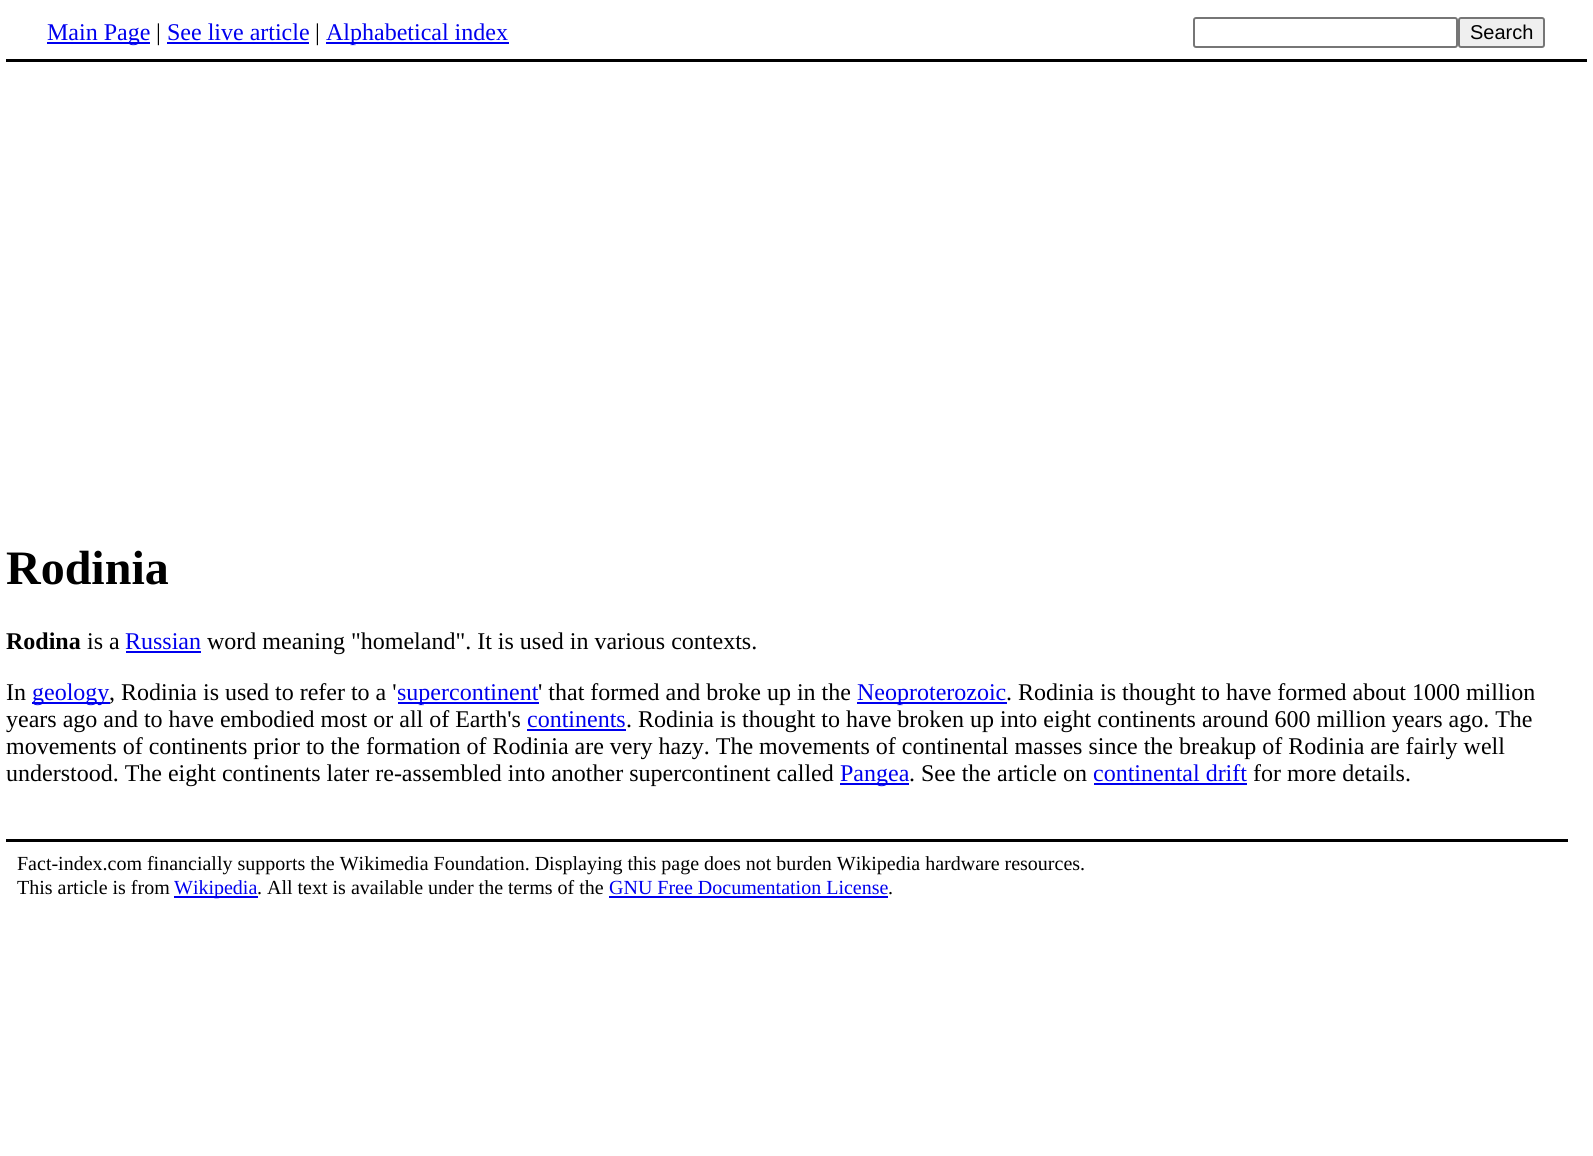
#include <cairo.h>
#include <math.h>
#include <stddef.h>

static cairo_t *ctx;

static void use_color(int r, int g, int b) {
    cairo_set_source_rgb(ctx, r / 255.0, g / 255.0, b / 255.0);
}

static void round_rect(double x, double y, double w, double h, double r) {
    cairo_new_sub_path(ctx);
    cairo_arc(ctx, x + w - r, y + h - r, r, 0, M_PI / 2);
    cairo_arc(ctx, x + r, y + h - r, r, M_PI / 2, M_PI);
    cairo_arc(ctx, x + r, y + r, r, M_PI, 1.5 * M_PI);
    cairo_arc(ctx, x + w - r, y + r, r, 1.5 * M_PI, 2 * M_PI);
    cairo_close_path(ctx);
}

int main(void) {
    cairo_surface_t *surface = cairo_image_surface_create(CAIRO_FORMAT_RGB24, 1593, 1156);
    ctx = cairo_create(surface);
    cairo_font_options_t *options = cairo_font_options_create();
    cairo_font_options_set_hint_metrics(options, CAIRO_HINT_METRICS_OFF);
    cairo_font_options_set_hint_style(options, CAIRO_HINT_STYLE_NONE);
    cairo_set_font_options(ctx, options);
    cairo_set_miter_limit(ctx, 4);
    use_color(255, 255, 255);
    cairo_paint(ctx);
    use_color(0, 0, 0);
    cairo_rectangle(ctx, 6, 59, 1581, 3);
    cairo_fill(ctx);
    use_color(0, 0, 238);
    cairo_rectangle(ctx, 47, 42, 103, 2);
    cairo_fill(ctx);
    cairo_select_font_face(ctx, "Liberation Serif", CAIRO_FONT_SLANT_NORMAL, CAIRO_FONT_WEIGHT_NORMAL);
    cairo_set_font_size(ctx, 24);
    cairo_move_to(ctx, 47, 40);
    cairo_show_text(ctx, "Main Page");
    use_color(0, 0, 0);
    cairo_move_to(ctx, 156, 40);
    cairo_show_text(ctx, "|");
    use_color(0, 0, 238);
    cairo_move_to(ctx, 167, 40);
    cairo_show_text(ctx, "See live article");
    cairo_rectangle(ctx, 167, 42, 142, 2);
    cairo_fill(ctx);
    use_color(0, 0, 0);
    cairo_move_to(ctx, 315, 40);
    cairo_show_text(ctx, "|");
    use_color(0, 0, 238);
    cairo_rectangle(ctx, 326, 42, 183, 2);
    cairo_fill(ctx);
    cairo_move_to(ctx, 326, 40);
    cairo_show_text(ctx, "Alphabetical index");
    round_rect(1194, 18, 263, 29, 2);
    use_color(118, 118, 118);
    cairo_stroke(ctx);
    use_color(239, 239, 239);
    round_rect(1459, 18, 85, 29, 2);
    cairo_fill_preserve(ctx);
    use_color(118, 118, 118);
    cairo_stroke(ctx);
    cairo_select_font_face(ctx, "Liberation Sans", CAIRO_FONT_SLANT_NORMAL, CAIRO_FONT_WEIGHT_NORMAL);
    cairo_set_font_size(ctx, 20);
    use_color(0, 0, 0);
    cairo_move_to(ctx, 1470, 39);
    cairo_show_text(ctx, "Search");
    cairo_select_font_face(ctx, "Liberation Serif", CAIRO_FONT_SLANT_NORMAL, CAIRO_FONT_WEIGHT_BOLD);
    cairo_set_font_size(ctx, 48);
    cairo_move_to(ctx, 6, 584);
    cairo_show_text(ctx, "Rodinia");
    cairo_set_font_size(ctx, 24);
    cairo_move_to(ctx, 6, 649);
    cairo_show_text(ctx, "Rodina");
    cairo_select_font_face(ctx, "Liberation Serif", CAIRO_FONT_SLANT_NORMAL, CAIRO_FONT_WEIGHT_NORMAL);
    cairo_move_to(ctx, 87, 649);
    cairo_show_text(ctx, "is a");
    use_color(0, 0, 238);
    cairo_move_to(ctx, 125, 649);
    cairo_show_text(ctx, "Russian");
    cairo_rectangle(ctx, 126, 651, 75, 2);
    cairo_fill(ctx);
    use_color(0, 0, 0);
    cairo_move_to(ctx, 207, 649);
    cairo_show_text(ctx, "word meaning \"homeland\". It is used in various contexts.");
    cairo_move_to(ctx, 6, 700);
    cairo_show_text(ctx, "In");
    use_color(0, 0, 238);
    cairo_rectangle(ctx, 32, 702, 78, 2);
    cairo_fill(ctx);
    cairo_move_to(ctx, 32, 700);
    cairo_show_text(ctx, "geology");
    use_color(0, 0, 0);
    cairo_move_to(ctx, 109, 700);
    cairo_show_text(ctx, ", Rodinia is used to refer to a '");
    use_color(0, 0, 238);
    cairo_rectangle(ctx, 398, 702, 141, 2);
    cairo_fill(ctx);
    cairo_move_to(ctx, 397, 700);
    cairo_show_text(ctx, "supercontinent");
    use_color(0, 0, 0);
    cairo_move_to(ctx, 538, 700);
    cairo_show_text(ctx, "' that formed and broke up in the");
    use_color(0, 0, 238);
    cairo_rectangle(ctx, 857, 702, 150, 2);
    cairo_fill(ctx);
    cairo_move_to(ctx, 857, 700);
    cairo_show_text(ctx, "Neoproterozoic");
    use_color(0, 0, 0);
    cairo_move_to(ctx, 1006, 700);
    cairo_show_text(ctx, ". Rodinia is thought to have formed about 1000 million");
    cairo_move_to(ctx, 6, 727);
    cairo_show_text(ctx, "years ago and to have embodied most or all of Earth's");
    use_color(0, 0, 238);
    cairo_move_to(ctx, 527, 727);
    cairo_show_text(ctx, "continents");
    cairo_rectangle(ctx, 527, 729, 99, 2);
    cairo_fill(ctx);
    use_color(0, 0, 0);
    cairo_move_to(ctx, 626, 727);
    cairo_show_text(ctx, ". Rodinia is thought to have broken up into eight continents around 600 million years ago. The");
    cairo_move_to(ctx, 6, 754);
    cairo_show_text(ctx, "movements of continents prior to the formation of Rodinia are very hazy. The movements of continental masses since the breakup of Rodinia are fairly well");
    cairo_move_to(ctx, 6, 781);
    cairo_show_text(ctx, "understood. The eight continents later re-assembled into another supercontinent called");
    use_color(0, 0, 238);
    cairo_rectangle(ctx, 840, 783, 69, 2);
    cairo_fill(ctx);
    cairo_move_to(ctx, 840, 781);
    cairo_show_text(ctx, "Pangea");
    use_color(0, 0, 0);
    cairo_move_to(ctx, 909, 781);
    cairo_show_text(ctx, ". See the article on");
    use_color(0, 0, 238);
    cairo_move_to(ctx, 1093, 781);
    cairo_show_text(ctx, "continental drift");
    cairo_rectangle(ctx, 1094, 783, 153, 2);
    cairo_fill(ctx);
    use_color(0, 0, 0);
    cairo_move_to(ctx, 1253, 781);
    cairo_show_text(ctx, "for more details.");
    cairo_rectangle(ctx, 6, 839, 1562, 3);
    cairo_fill(ctx);
    cairo_set_font_size(ctx, 20);
    cairo_move_to(ctx, 17, 870);
    cairo_show_text(ctx, "Fact-index.com financially supports the Wikimedia Foundation. Displaying this page does not burden Wikipedia hardware resources.");
    cairo_move_to(ctx, 17, 894);
    cairo_show_text(ctx, "This article is from");
    use_color(0, 0, 238);
    cairo_rectangle(ctx, 174, 896, 84, 2);
    cairo_fill(ctx);
    cairo_move_to(ctx, 174, 894);
    cairo_show_text(ctx, "Wikipedia");
    use_color(0, 0, 0);
    cairo_move_to(ctx, 257, 894);
    cairo_show_text(ctx, ". All text is available under the terms of the");
    use_color(0, 0, 238);
    cairo_move_to(ctx, 609, 894);
    cairo_show_text(ctx, "GNU Free Documentation License");
    use_color(0, 0, 0);
    cairo_move_to(ctx, 888, 894);
    cairo_show_text(ctx, ".");
    use_color(0, 0, 238);
    cairo_rectangle(ctx, 609, 896, 279, 2);
    cairo_fill(ctx);
    cairo_surface_write_to_png(surface, "result.png");
    cairo_font_options_destroy(options);
    cairo_destroy(ctx);
    cairo_surface_destroy(surface);
    return 0;
}
